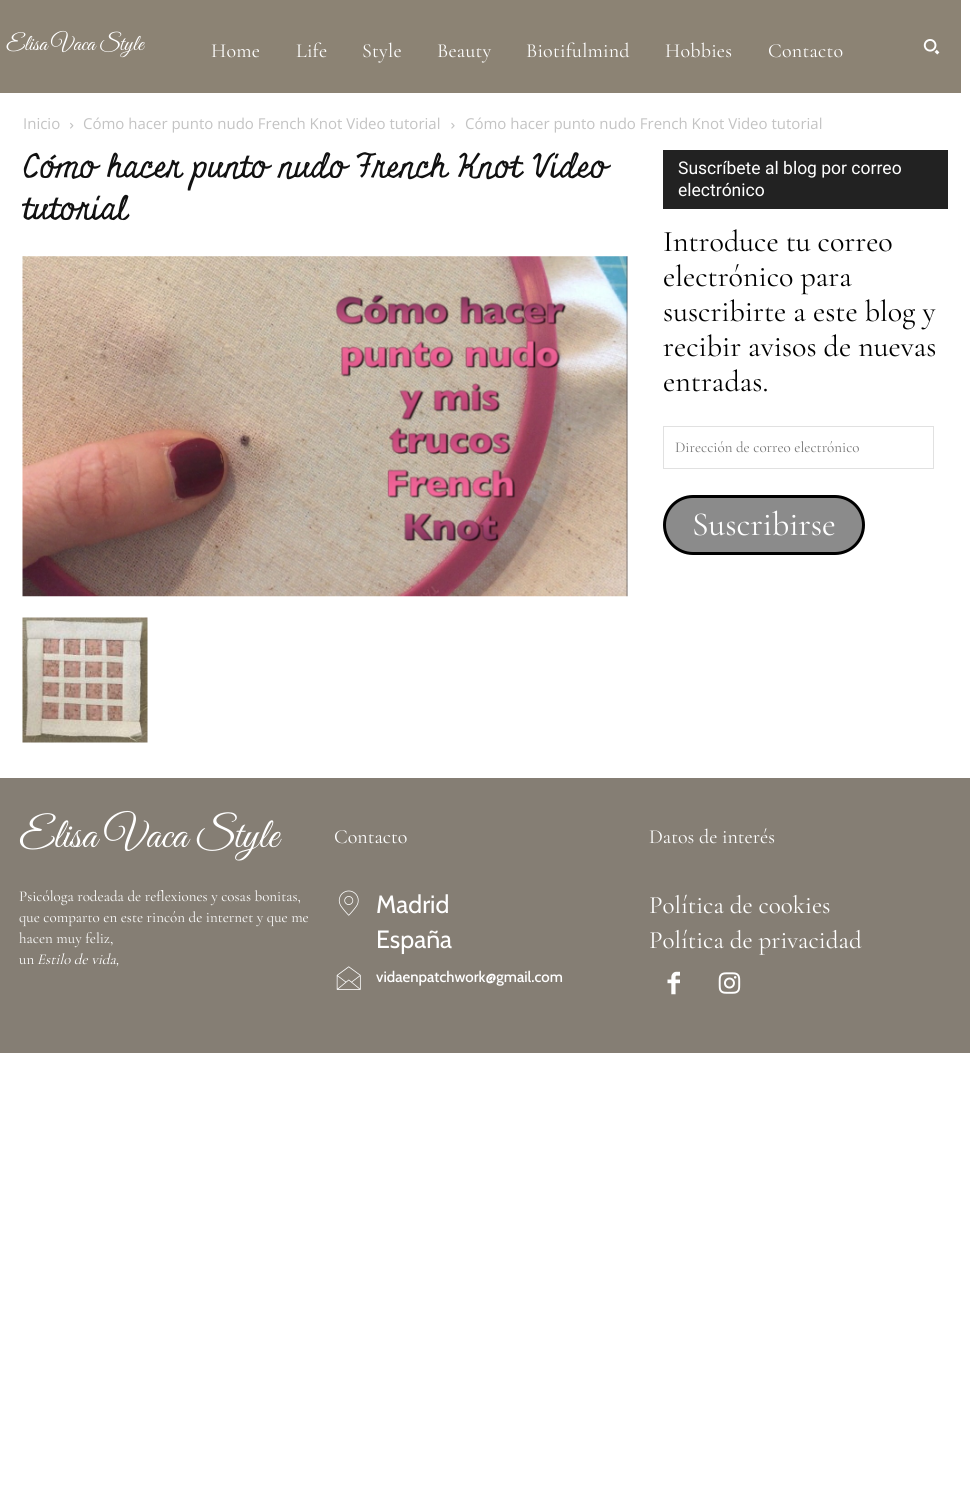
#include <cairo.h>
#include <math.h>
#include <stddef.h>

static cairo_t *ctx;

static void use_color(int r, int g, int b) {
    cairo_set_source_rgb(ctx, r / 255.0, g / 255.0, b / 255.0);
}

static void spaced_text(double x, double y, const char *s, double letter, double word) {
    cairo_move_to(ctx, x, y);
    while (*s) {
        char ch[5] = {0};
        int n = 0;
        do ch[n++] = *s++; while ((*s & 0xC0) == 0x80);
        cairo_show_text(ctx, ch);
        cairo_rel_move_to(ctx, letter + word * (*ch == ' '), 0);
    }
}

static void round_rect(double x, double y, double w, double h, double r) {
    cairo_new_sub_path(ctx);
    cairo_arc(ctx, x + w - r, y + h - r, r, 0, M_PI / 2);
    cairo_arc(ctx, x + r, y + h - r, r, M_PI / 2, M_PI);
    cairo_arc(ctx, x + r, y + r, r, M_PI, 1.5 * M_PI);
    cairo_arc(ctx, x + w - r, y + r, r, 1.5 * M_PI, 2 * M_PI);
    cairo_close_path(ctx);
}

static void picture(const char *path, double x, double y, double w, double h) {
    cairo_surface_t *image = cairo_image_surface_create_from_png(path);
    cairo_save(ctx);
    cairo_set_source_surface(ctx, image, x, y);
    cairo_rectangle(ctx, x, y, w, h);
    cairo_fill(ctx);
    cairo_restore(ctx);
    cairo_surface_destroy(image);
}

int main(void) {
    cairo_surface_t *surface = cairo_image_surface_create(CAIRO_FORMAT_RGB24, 970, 1505);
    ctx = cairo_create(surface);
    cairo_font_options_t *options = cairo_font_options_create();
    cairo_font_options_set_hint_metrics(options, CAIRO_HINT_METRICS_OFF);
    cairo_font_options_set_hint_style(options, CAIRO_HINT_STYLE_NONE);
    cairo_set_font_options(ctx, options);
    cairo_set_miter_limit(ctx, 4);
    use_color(255, 255, 255);
    cairo_paint(ctx);
    use_color(140, 131, 116);
    cairo_rectangle(ctx, 0, 0, 961, 93);
    cairo_fill(ctx);
    cairo_select_font_face(ctx, "Great Vibes", CAIRO_FONT_SLANT_NORMAL, CAIRO_FONT_WEIGHT_NORMAL);
    cairo_set_font_size(ctx, 22.5);
    use_color(255, 255, 255);
    cairo_move_to(ctx, 6, 50);
    cairo_show_text(ctx, "Elisa Vaca Style");
    cairo_select_font_face(ctx, "Cormorant Garamond Light", CAIRO_FONT_SLANT_NORMAL, CAIRO_FONT_WEIGHT_NORMAL);
    cairo_set_font_size(ctx, 20);
    spaced_text(211, 57, "Home", 0.25, 0);
    spaced_text(296, 57, "Life", 0.25, 0);
    spaced_text(362, 57, "Style", 0.25, 0);
    spaced_text(437, 57, "Beauty", 0.25, 0);
    spaced_text(526, 57, "Biotifulmind", 0.25, 0);
    spaced_text(665, 57, "Hobbies", 0.25, 0);
    spaced_text(768, 57, "Contacto", 0.25, 0);
    picture("img1.png", 923, 39, 17, 16);
    cairo_select_font_face(ctx, "Open Sans", CAIRO_FONT_SLANT_NORMAL, CAIRO_FONT_WEIGHT_NORMAL);
    cairo_set_font_size(ctx, 15);
    use_color(195, 195, 195);
    cairo_move_to(ctx, 23, 129);
    cairo_show_text(ctx, "Inicio");
    picture("img2.png", 70, 122, 4, 7);
    cairo_move_to(ctx, 83, 129);
    cairo_show_text(ctx, "Cómo hacer punto nudo French Knot Video tutorial");
    picture("img3.png", 451, 122, 4, 7);
    cairo_move_to(ctx, 465, 129);
    cairo_show_text(ctx, "Cómo hacer punto nudo French Knot Video tutorial");
    cairo_select_font_face(ctx, "Miniver", CAIRO_FONT_SLANT_NORMAL, CAIRO_FONT_WEIGHT_NORMAL);
    cairo_set_font_size(ctx, 32.5);
    use_color(17, 17, 17);
    cairo_move_to(ctx, 23, 177);
    cairo_show_text(ctx, "Cómo hacer punto nudo French Knot Video");
    cairo_move_to(ctx, 23, 219);
    cairo_show_text(ctx, "tutorial");
    picture("img4.png", 22, 256, 606, 341);
    picture("img5.png", 22, 617, 126, 126);
    use_color(34, 34, 34);
    cairo_rectangle(ctx, 663, 150, 285, 59);
    cairo_fill(ctx);
    cairo_select_font_face(ctx, "Roboto", CAIRO_FONT_SLANT_NORMAL, CAIRO_FONT_WEIGHT_NORMAL);
    cairo_set_font_size(ctx, 17.5);
    use_color(255, 255, 255);
    cairo_move_to(ctx, 678, 174);
    cairo_show_text(ctx, "Suscríbete al blog por correo");
    cairo_move_to(ctx, 678, 196);
    cairo_show_text(ctx, "electrónico");
    cairo_select_font_face(ctx, "Cormorant Garamond Light", CAIRO_FONT_SLANT_NORMAL, CAIRO_FONT_WEIGHT_NORMAL);
    cairo_set_font_size(ctx, 30);
    use_color(0, 0, 0);
    cairo_move_to(ctx, 663, 251);
    cairo_show_text(ctx, "Introduce tu correo");
    cairo_move_to(ctx, 663, 286);
    cairo_show_text(ctx, "electrónico para");
    cairo_move_to(ctx, 663, 321);
    cairo_show_text(ctx, "suscribirte a este blog y");
    cairo_move_to(ctx, 663, 356);
    cairo_show_text(ctx, "recibir avisos de nuevas");
    cairo_move_to(ctx, 663, 391);
    cairo_show_text(ctx, "entradas.");
    cairo_rectangle(ctx, 663.5, 426.5, 270, 42);
    use_color(225, 225, 225);
    cairo_set_line_width(ctx, 1);
    cairo_stroke(ctx);
    cairo_set_font_size(ctx, 15);
    use_color(117, 117, 117);
    cairo_move_to(ctx, 675, 452);
    cairo_show_text(ctx, "Dirección de correo electrónico");
    use_color(139, 139, 139);
    round_rect(664.5, 496.5, 199, 57, 28.5);
    cairo_fill_preserve(ctx);
    use_color(0, 0, 0);
    cairo_set_line_width(ctx, 3);
    cairo_stroke(ctx);
    cairo_set_font_size(ctx, 33.75);
    use_color(255, 255, 255);
    cairo_move_to(ctx, 692, 535);
    cairo_show_text(ctx, "Suscribirse");
    use_color(133, 126, 116);
    cairo_rectangle(ctx, 0, 778, 970, 275);
    cairo_fill(ctx);
    cairo_select_font_face(ctx, "Great Vibes", CAIRO_FONT_SLANT_NORMAL, CAIRO_FONT_WEIGHT_NORMAL);
    cairo_set_font_size(ctx, 42.5);
    use_color(255, 255, 255);
    cairo_move_to(ctx, 19, 847);
    cairo_show_text(ctx, "Elisa Vaca Style");
    cairo_select_font_face(ctx, "Cormorant Garamond Light", CAIRO_FONT_SLANT_NORMAL, CAIRO_FONT_WEIGHT_NORMAL);
    cairo_set_font_size(ctx, 15);
    cairo_move_to(ctx, 19, 901);
    cairo_show_text(ctx, "Psicóloga rodeada de reflexiones y cosas bonitas,");
    cairo_move_to(ctx, 19, 922);
    cairo_show_text(ctx, "que comparto en este rincón de internet y que me");
    cairo_move_to(ctx, 19, 943);
    cairo_show_text(ctx, "hacen muy feliz,");
    cairo_move_to(ctx, 19, 964);
    cairo_show_text(ctx, "un");
    cairo_select_font_face(ctx, "Cormorant Garamond Light", CAIRO_FONT_SLANT_ITALIC, CAIRO_FONT_WEIGHT_NORMAL);
    cairo_move_to(ctx, 37, 964);
    cairo_show_text(ctx, "Estilo de vida,");
    cairo_select_font_face(ctx, "Cormorant Garamond Light", CAIRO_FONT_SLANT_NORMAL, CAIRO_FONT_WEIGHT_NORMAL);
    cairo_set_font_size(ctx, 20);
    cairo_move_to(ctx, 334, 843);
    cairo_show_text(ctx, "Contacto");
    picture("img6.png", 338, 890, 21, 26);
    cairo_select_font_face(ctx, "Cabin", CAIRO_FONT_SLANT_NORMAL, CAIRO_FONT_WEIGHT_NORMAL);
    cairo_set_font_size(ctx, 25);
    cairo_move_to(ctx, 376, 913);
    cairo_show_text(ctx, "Madrid");
    cairo_move_to(ctx, 376, 948);
    cairo_show_text(ctx, "España");
    picture("img7.png", 336, 966, 25, 24);
    cairo_select_font_face(ctx, "Cabin Medium", CAIRO_FONT_SLANT_NORMAL, CAIRO_FONT_WEIGHT_NORMAL);
    cairo_set_font_size(ctx, 15);
    cairo_move_to(ctx, 376, 982);
    cairo_show_text(ctx, "vidaenpatchwork@gmail.com");
    cairo_select_font_face(ctx, "Cormorant Garamond Light", CAIRO_FONT_SLANT_NORMAL, CAIRO_FONT_WEIGHT_NORMAL);
    cairo_set_font_size(ctx, 20);
    cairo_move_to(ctx, 649, 843);
    cairo_show_text(ctx, "Datos de interés");
    cairo_set_font_size(ctx, 25);
    cairo_move_to(ctx, 649, 913);
    cairo_show_text(ctx, "Política de cookies");
    cairo_move_to(ctx, 649, 948);
    cairo_show_text(ctx, "Política de privacidad");
    picture("img8.png", 667, 971, 13, 24);
    picture("img9.png", 718, 972, 23, 22);
    cairo_surface_write_to_png(surface, "result.png");
    cairo_font_options_destroy(options);
    cairo_destroy(ctx);
    cairo_surface_destroy(surface);
    return 0;
}
